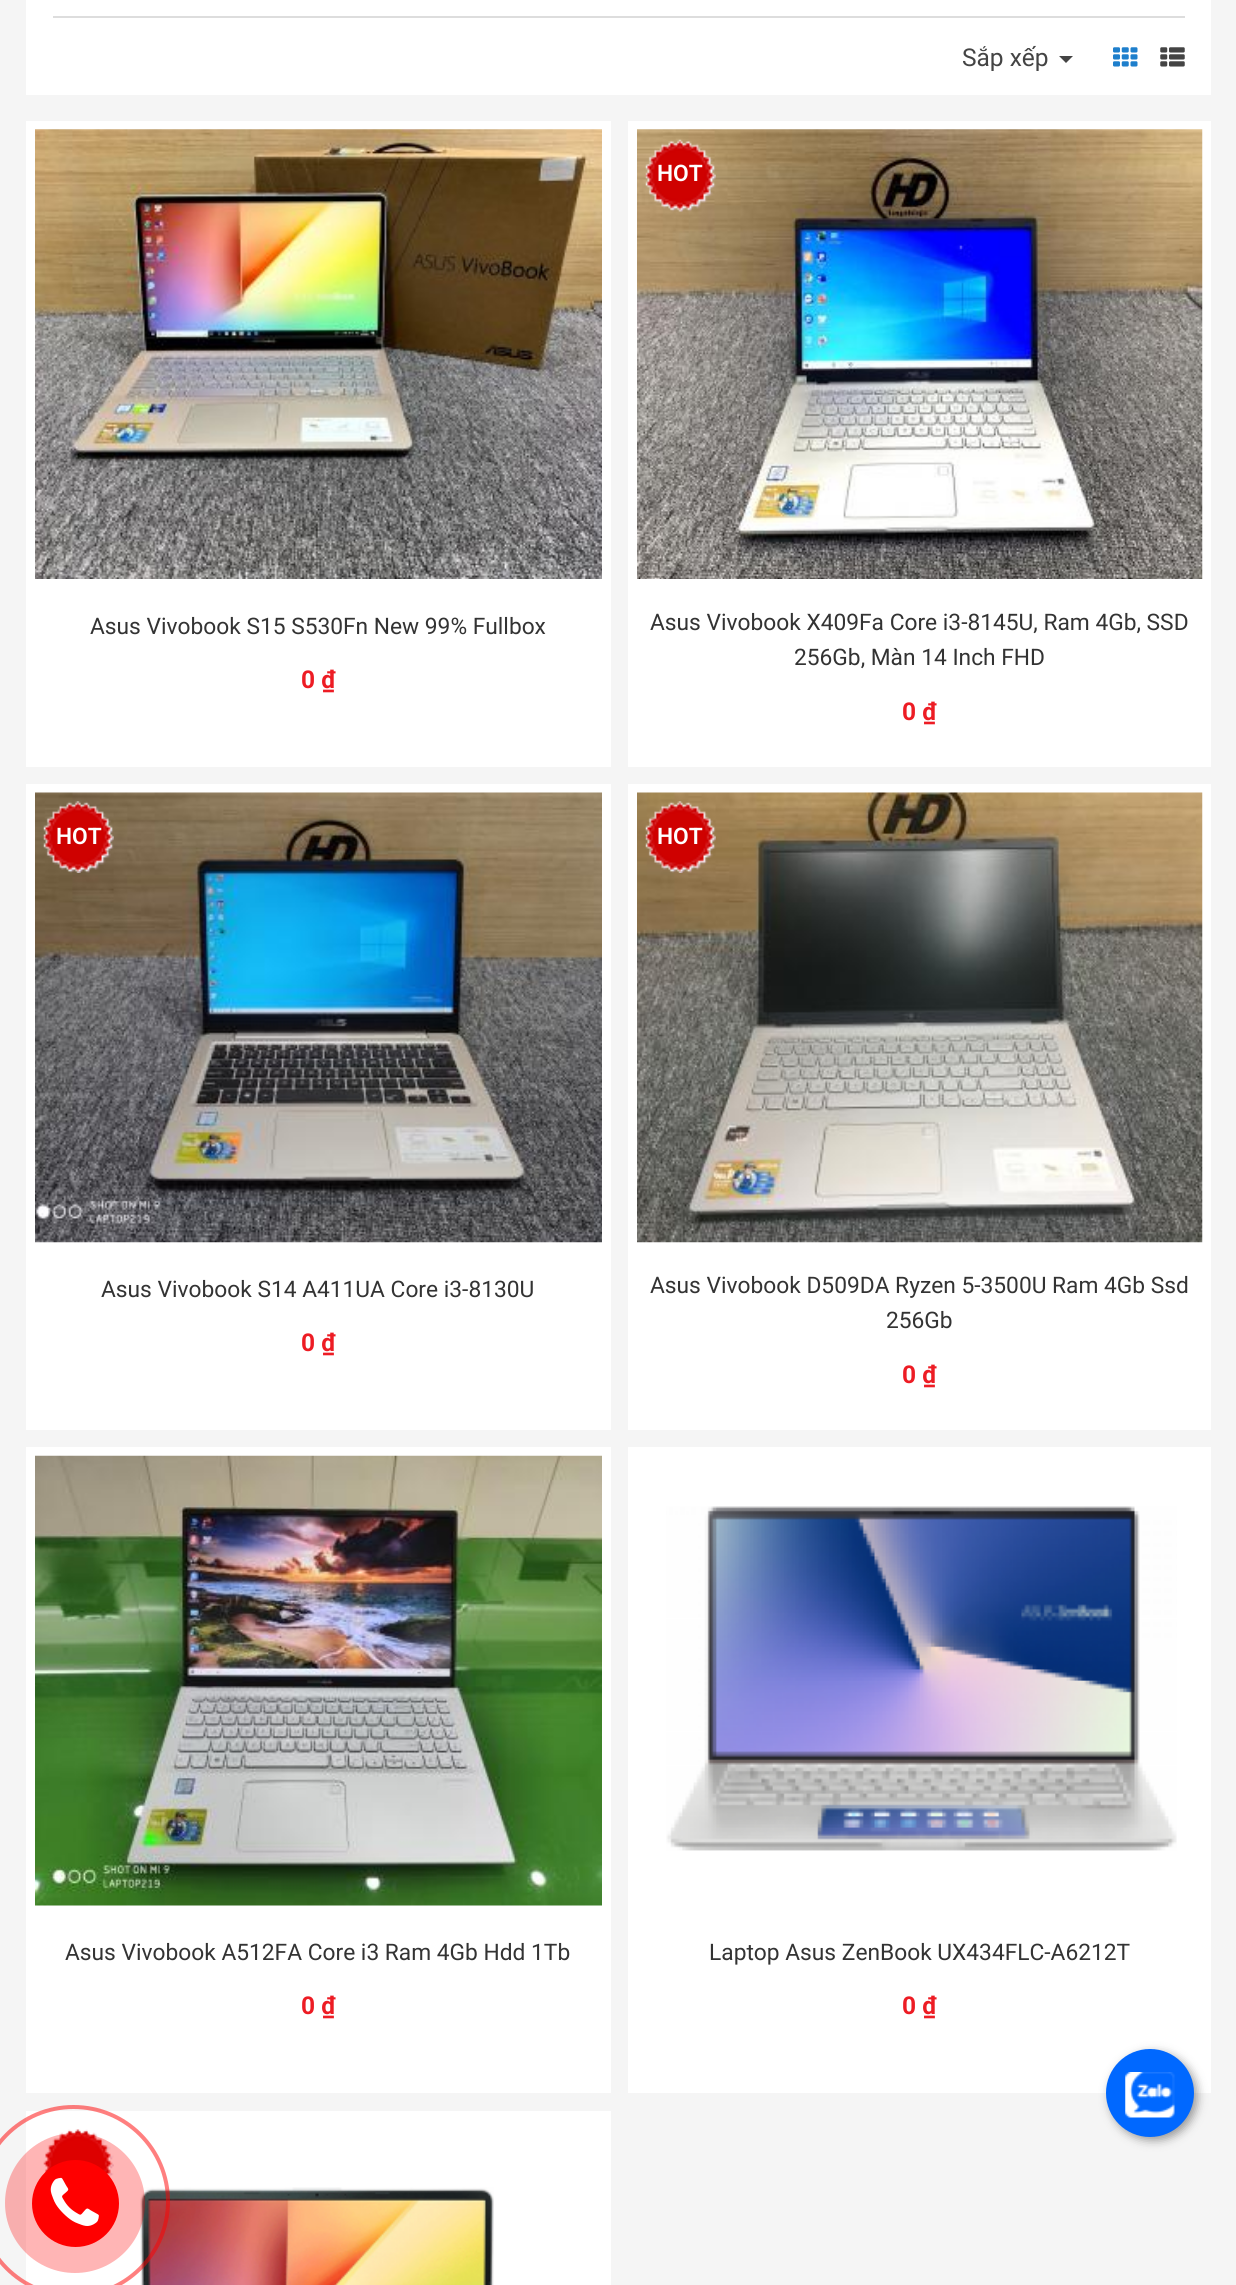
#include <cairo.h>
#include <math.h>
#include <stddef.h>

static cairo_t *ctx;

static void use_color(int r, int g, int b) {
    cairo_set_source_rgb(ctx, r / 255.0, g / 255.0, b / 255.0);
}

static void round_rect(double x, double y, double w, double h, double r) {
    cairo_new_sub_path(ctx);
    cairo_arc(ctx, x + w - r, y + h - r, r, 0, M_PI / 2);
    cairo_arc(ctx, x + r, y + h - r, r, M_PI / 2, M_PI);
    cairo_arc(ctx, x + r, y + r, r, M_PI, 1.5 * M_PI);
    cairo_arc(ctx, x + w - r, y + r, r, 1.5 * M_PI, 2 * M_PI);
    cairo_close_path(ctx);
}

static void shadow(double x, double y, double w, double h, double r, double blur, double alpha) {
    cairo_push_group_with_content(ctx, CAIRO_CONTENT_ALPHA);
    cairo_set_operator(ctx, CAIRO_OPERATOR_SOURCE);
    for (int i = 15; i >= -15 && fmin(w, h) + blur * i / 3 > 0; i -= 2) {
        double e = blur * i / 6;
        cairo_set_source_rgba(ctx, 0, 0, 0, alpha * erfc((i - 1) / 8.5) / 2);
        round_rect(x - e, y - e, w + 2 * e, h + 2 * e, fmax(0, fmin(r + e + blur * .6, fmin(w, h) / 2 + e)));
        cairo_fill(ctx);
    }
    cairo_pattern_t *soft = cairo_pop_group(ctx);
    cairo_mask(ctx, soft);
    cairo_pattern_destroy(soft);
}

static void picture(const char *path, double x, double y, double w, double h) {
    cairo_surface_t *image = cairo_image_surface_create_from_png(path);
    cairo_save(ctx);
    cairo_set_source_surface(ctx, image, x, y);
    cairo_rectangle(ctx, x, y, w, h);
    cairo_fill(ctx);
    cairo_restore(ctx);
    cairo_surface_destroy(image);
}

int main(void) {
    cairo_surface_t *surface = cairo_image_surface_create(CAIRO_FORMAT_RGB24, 1236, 2285);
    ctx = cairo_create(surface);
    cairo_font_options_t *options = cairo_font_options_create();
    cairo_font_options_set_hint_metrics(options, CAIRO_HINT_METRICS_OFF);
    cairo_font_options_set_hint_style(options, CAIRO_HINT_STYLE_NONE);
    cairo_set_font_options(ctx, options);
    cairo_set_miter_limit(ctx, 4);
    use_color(245, 245, 245);
    cairo_paint(ctx);
    use_color(255, 255, 255);
    cairo_rectangle(ctx, 26, 0, 1185, 95);
    cairo_fill(ctx);
    use_color(221, 221, 221);
    cairo_rectangle(ctx, 53, 16, 1132, 2);
    cairo_fill(ctx);
    cairo_select_font_face(ctx, "Roboto", CAIRO_FONT_SLANT_NORMAL, CAIRO_FONT_WEIGHT_NORMAL);
    cairo_set_font_size(ctx, 24.5);
    use_color(68, 68, 68);
    cairo_move_to(ctx, 962, 66);
    cairo_show_text(ctx, "Sắp xếp");
    cairo_new_path(ctx);
    cairo_move_to(ctx, 1059, 56);
    cairo_line_to(ctx, 1073, 56);
    cairo_line_to(ctx, 1066, 63);
    cairo_close_path(ctx);
    cairo_fill(ctx);
    picture("img1.png", 1113, 47, 25, 20);
    picture("img2.png", 1160, 47, 25, 20);
    use_color(255, 255, 255);
    cairo_rectangle(ctx, 26, 121, 585, 646);
    cairo_fill(ctx);
    picture("img3.png", 35, 129, 567, 450);
    cairo_set_font_size(ctx, 22.75);
    use_color(51, 51, 51);
    cairo_move_to(ctx, 90, 634);
    cairo_show_text(ctx, "Asus Vivobook S15 S530Fn New 99% Fullbox");
    cairo_select_font_face(ctx, "Roboto", CAIRO_FONT_SLANT_NORMAL, CAIRO_FONT_WEIGHT_BOLD);
    cairo_set_font_size(ctx, 24.5);
    use_color(237, 28, 36);
    cairo_move_to(ctx, 301, 688);
    cairo_show_text(ctx, "0 ₫");
    use_color(255, 255, 255);
    cairo_rectangle(ctx, 628, 121, 583, 646);
    cairo_fill(ctx);
    picture("img4.png", 637, 129, 566, 450);
    picture("img5.png", 645, 139, 71, 73);
    cairo_select_font_face(ctx, "Roboto SemiBold", CAIRO_FONT_SLANT_NORMAL, CAIRO_FONT_WEIGHT_NORMAL);
    cairo_set_font_size(ctx, 22.75);
    cairo_move_to(ctx, 657, 181);
    cairo_show_text(ctx, "HOT");
    cairo_select_font_face(ctx, "Roboto", CAIRO_FONT_SLANT_NORMAL, CAIRO_FONT_WEIGHT_NORMAL);
    use_color(51, 51, 51);
    cairo_move_to(ctx, 650, 630);
    cairo_show_text(ctx, "Asus Vivobook X409Fa Core i3-8145U, Ram 4Gb, SSD");
    cairo_move_to(ctx, 794, 665);
    cairo_show_text(ctx, "256Gb, Màn 14 Inch FHD");
    cairo_select_font_face(ctx, "Roboto", CAIRO_FONT_SLANT_NORMAL, CAIRO_FONT_WEIGHT_BOLD);
    cairo_set_font_size(ctx, 24.5);
    use_color(237, 28, 36);
    cairo_move_to(ctx, 902, 720);
    cairo_show_text(ctx, "0 ₫");
    use_color(255, 255, 255);
    cairo_rectangle(ctx, 26, 784, 585, 646);
    cairo_fill(ctx);
    picture("img6.png", 35, 792, 567, 451);
    picture("img7.png", 43, 801, 71, 72);
    cairo_select_font_face(ctx, "Roboto SemiBold", CAIRO_FONT_SLANT_NORMAL, CAIRO_FONT_WEIGHT_NORMAL);
    cairo_set_font_size(ctx, 22.75);
    cairo_move_to(ctx, 56, 844);
    cairo_show_text(ctx, "HOT");
    cairo_select_font_face(ctx, "Roboto", CAIRO_FONT_SLANT_NORMAL, CAIRO_FONT_WEIGHT_NORMAL);
    use_color(51, 51, 51);
    cairo_move_to(ctx, 101, 1297);
    cairo_show_text(ctx, "Asus Vivobook S14 A411UA Core i3-8130U");
    cairo_select_font_face(ctx, "Roboto", CAIRO_FONT_SLANT_NORMAL, CAIRO_FONT_WEIGHT_BOLD);
    cairo_set_font_size(ctx, 24.5);
    use_color(237, 28, 36);
    cairo_move_to(ctx, 301, 1351);
    cairo_show_text(ctx, "0 ₫");
    use_color(255, 255, 255);
    cairo_rectangle(ctx, 628, 784, 583, 646);
    cairo_fill(ctx);
    picture("img8.png", 637, 792, 566, 451);
    picture("img9.png", 645, 801, 71, 72);
    cairo_select_font_face(ctx, "Roboto SemiBold", CAIRO_FONT_SLANT_NORMAL, CAIRO_FONT_WEIGHT_NORMAL);
    cairo_set_font_size(ctx, 22.75);
    cairo_move_to(ctx, 657, 844);
    cairo_show_text(ctx, "HOT");
    cairo_select_font_face(ctx, "Roboto", CAIRO_FONT_SLANT_NORMAL, CAIRO_FONT_WEIGHT_NORMAL);
    use_color(51, 51, 51);
    cairo_move_to(ctx, 650, 1293);
    cairo_show_text(ctx, "Asus Vivobook D509DA Ryzen 5-3500U Ram 4Gb Ssd");
    cairo_move_to(ctx, 886, 1328);
    cairo_show_text(ctx, "256Gb");
    cairo_select_font_face(ctx, "Roboto", CAIRO_FONT_SLANT_NORMAL, CAIRO_FONT_WEIGHT_BOLD);
    cairo_set_font_size(ctx, 24.5);
    use_color(237, 28, 36);
    cairo_move_to(ctx, 902, 1383);
    cairo_show_text(ctx, "0 ₫");
    use_color(255, 255, 255);
    cairo_rectangle(ctx, 26, 1447, 585, 646);
    cairo_fill(ctx);
    picture("img10.png", 35, 1455, 567, 451);
    cairo_select_font_face(ctx, "Roboto", CAIRO_FONT_SLANT_NORMAL, CAIRO_FONT_WEIGHT_NORMAL);
    cairo_set_font_size(ctx, 22.75);
    use_color(51, 51, 51);
    cairo_move_to(ctx, 65, 1960);
    cairo_show_text(ctx, "Asus Vivobook A512FA Core i3 Ram 4Gb Hdd 1Tb");
    cairo_select_font_face(ctx, "Roboto", CAIRO_FONT_SLANT_NORMAL, CAIRO_FONT_WEIGHT_BOLD);
    cairo_set_font_size(ctx, 24.5);
    use_color(237, 28, 36);
    cairo_move_to(ctx, 301, 2014);
    cairo_show_text(ctx, "0 ₫");
    use_color(255, 255, 255);
    cairo_rectangle(ctx, 628, 1447, 583, 646);
    cairo_fill(ctx);
    picture("img11.png", 666, 1506, 511, 345);
    cairo_select_font_face(ctx, "Roboto", CAIRO_FONT_SLANT_NORMAL, CAIRO_FONT_WEIGHT_NORMAL);
    cairo_set_font_size(ctx, 22.75);
    use_color(51, 51, 51);
    cairo_move_to(ctx, 709, 1960);
    cairo_show_text(ctx, "Laptop Asus ZenBook UX434FLC-A6212T");
    cairo_select_font_face(ctx, "Roboto", CAIRO_FONT_SLANT_NORMAL, CAIRO_FONT_WEIGHT_BOLD);
    cairo_set_font_size(ctx, 24.5);
    use_color(237, 28, 36);
    cairo_move_to(ctx, 902, 2014);
    cairo_show_text(ctx, "0 ₫");
    use_color(255, 255, 255);
    cairo_rectangle(ctx, 26, 2111, 585, 174);
    cairo_fill(ctx);
    picture("img12.png", 43, 2129, 71, 48);
    picture("img13.png", 140, 2187, 354, 98);
    use_color(0, 0, 0);
    shadow(1110, 2053, 87, 87, 43.5, 5, 0.4);
    use_color(0, 104, 255);
    cairo_arc(ctx, 1150, 2093, 44, 0, 2 * M_PI);
    cairo_fill(ctx);
    picture("img14.png", 1125, 2072, 50, 46);
    cairo_arc(ctx, 73.5, 2201.5, 94.5, 0, 2 * M_PI);
    cairo_set_source_rgba(ctx, 1, 0, 0, 0.5);
    cairo_set_line_width(ctx, 4);
    cairo_stroke(ctx);
    cairo_set_source_rgba(ctx, 1, 0, 0, 0.29);
    cairo_arc(ctx, 75, 2203, 70, 0, 2 * M_PI);
    cairo_fill(ctx);
    use_color(255, 0, 0);
    cairo_arc(ctx, 75.5, 2203.5, 43.5, 0, 2 * M_PI);
    cairo_fill(ctx);
    picture("img15.png", 50, 2177, 49, 49);
    cairo_surface_write_to_png(surface, "result.png");
    cairo_font_options_destroy(options);
    cairo_destroy(ctx);
    cairo_surface_destroy(surface);
    return 0;
}
